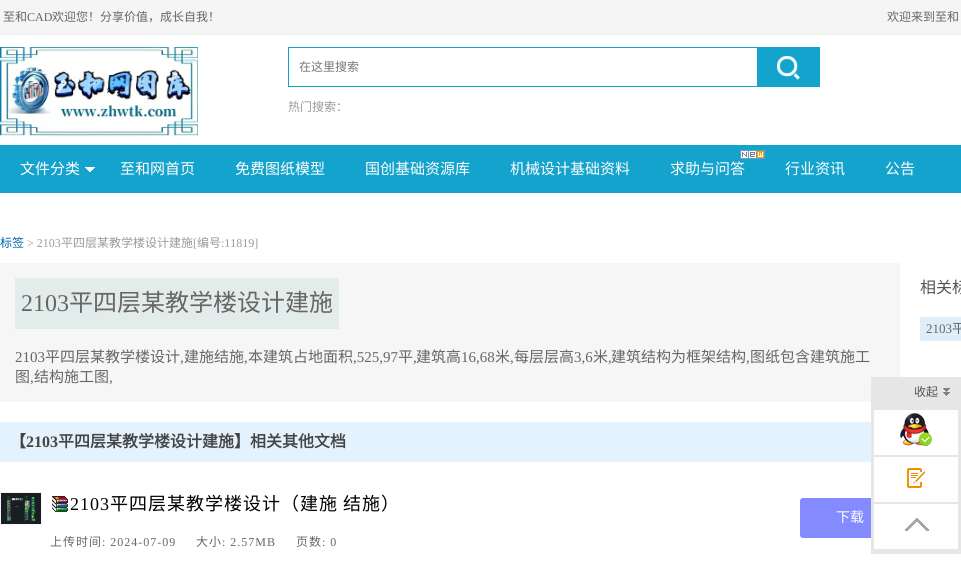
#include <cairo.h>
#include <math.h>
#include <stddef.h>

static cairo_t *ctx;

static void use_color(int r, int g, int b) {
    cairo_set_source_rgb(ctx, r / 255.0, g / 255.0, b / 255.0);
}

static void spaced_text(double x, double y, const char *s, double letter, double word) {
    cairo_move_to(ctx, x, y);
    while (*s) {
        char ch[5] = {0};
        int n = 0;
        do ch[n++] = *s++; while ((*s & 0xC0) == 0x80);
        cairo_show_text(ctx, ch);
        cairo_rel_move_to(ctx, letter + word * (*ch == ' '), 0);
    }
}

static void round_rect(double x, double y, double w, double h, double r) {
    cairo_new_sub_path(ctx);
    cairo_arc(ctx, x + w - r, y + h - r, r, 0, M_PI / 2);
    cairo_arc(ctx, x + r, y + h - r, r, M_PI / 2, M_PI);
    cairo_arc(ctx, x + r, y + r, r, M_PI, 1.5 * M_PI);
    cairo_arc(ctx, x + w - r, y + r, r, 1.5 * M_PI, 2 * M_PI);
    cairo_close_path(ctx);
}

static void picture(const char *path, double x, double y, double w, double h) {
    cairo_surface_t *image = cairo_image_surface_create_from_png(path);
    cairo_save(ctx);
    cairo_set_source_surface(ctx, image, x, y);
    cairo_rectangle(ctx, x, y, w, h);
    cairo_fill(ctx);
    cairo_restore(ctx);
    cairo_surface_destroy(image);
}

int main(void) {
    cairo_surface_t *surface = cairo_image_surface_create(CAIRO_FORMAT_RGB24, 961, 574);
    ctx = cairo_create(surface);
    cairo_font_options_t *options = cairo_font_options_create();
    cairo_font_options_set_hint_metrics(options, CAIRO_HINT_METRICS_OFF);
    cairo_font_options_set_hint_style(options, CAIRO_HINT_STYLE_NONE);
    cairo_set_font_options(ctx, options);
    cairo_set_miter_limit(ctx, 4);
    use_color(255, 255, 255);
    cairo_paint(ctx);
    use_color(245, 245, 245);
    cairo_rectangle(ctx, 0, 0, 961, 34);
    cairo_fill(ctx);
    use_color(238, 238, 238);
    cairo_rectangle(ctx, 0, 34, 961, 1);
    cairo_fill(ctx);
    cairo_select_font_face(ctx, "Noto Sans CJK SC", CAIRO_FONT_SLANT_NORMAL, CAIRO_FONT_WEIGHT_NORMAL);
    cairo_set_font_size(ctx, 12);
    use_color(102, 102, 102);
    cairo_move_to(ctx, 3, 21);
    cairo_show_text(ctx, "至和");
    cairo_select_font_face(ctx, "Liberation Serif", CAIRO_FONT_SLANT_NORMAL, CAIRO_FONT_WEIGHT_NORMAL);
    cairo_move_to(ctx, 27, 21);
    cairo_show_text(ctx, "CAD");
    cairo_select_font_face(ctx, "Noto Sans CJK SC", CAIRO_FONT_SLANT_NORMAL, CAIRO_FONT_WEIGHT_NORMAL);
    cairo_move_to(ctx, 52, 21);
    cairo_show_text(ctx, "欢迎您！分享价值，成长自我！");
    cairo_move_to(ctx, 887, 21);
    cairo_show_text(ctx, "欢迎来到至和");
    picture("img1.png", 0, 47, 198, 90);
    cairo_rectangle(ctx, 288.5, 47.5, 531, 39);
    use_color(20, 163, 204);
    cairo_set_line_width(ctx, 1);
    cairo_stroke(ctx);
    use_color(117, 117, 117);
    cairo_move_to(ctx, 299, 71);
    cairo_show_text(ctx, "在这里搜索");
    use_color(20, 163, 204);
    cairo_rectangle(ctx, 757, 48, 62, 38);
    cairo_fill(ctx);
    picture("img2.png", 777, 56, 24, 24);
    use_color(153, 153, 153);
    cairo_move_to(ctx, 288, 111);
    cairo_show_text(ctx, "热门搜索：");
    use_color(20, 163, 204);
    cairo_rectangle(ctx, 0, 145, 961, 48);
    cairo_fill(ctx);
    cairo_set_font_size(ctx, 15);
    use_color(255, 255, 255);
    cairo_move_to(ctx, 20, 174);
    cairo_show_text(ctx, "文件分类");
    picture("img3.png", 85, 167, 10, 5);
    cairo_move_to(ctx, 120, 174);
    cairo_show_text(ctx, "至和网首页");
    cairo_move_to(ctx, 235, 174);
    cairo_show_text(ctx, "免费图纸模型");
    cairo_move_to(ctx, 365, 174);
    cairo_show_text(ctx, "国创基础资源库");
    cairo_move_to(ctx, 510, 174);
    cairo_show_text(ctx, "机械设计基础资料");
    picture("img4.png", 740, 150, 25, 9);
    cairo_move_to(ctx, 670, 174);
    cairo_show_text(ctx, "求助与问答");
    cairo_move_to(ctx, 785, 174);
    cairo_show_text(ctx, "行业资讯");
    cairo_move_to(ctx, 885, 174);
    cairo_show_text(ctx, "公告");
    cairo_set_font_size(ctx, 12);
    use_color(0, 102, 170);
    cairo_move_to(ctx, 0, 247);
    cairo_show_text(ctx, "标签");
    cairo_select_font_face(ctx, "Liberation Serif", CAIRO_FONT_SLANT_NORMAL, CAIRO_FONT_WEIGHT_NORMAL);
    use_color(153, 153, 153);
    cairo_move_to(ctx, 27, 247);
    cairo_show_text(ctx, "> 2103");
    cairo_select_font_face(ctx, "Noto Sans CJK SC", CAIRO_FONT_SLANT_NORMAL, CAIRO_FONT_WEIGHT_NORMAL);
    cairo_move_to(ctx, 61, 247);
    cairo_show_text(ctx, "平四层某教学楼设计建施");
    cairo_select_font_face(ctx, "Liberation Serif", CAIRO_FONT_SLANT_NORMAL, CAIRO_FONT_WEIGHT_NORMAL);
    cairo_move_to(ctx, 193, 247);
    cairo_show_text(ctx, "[");
    cairo_select_font_face(ctx, "Noto Sans CJK SC", CAIRO_FONT_SLANT_NORMAL, CAIRO_FONT_WEIGHT_NORMAL);
    cairo_move_to(ctx, 197, 247);
    cairo_show_text(ctx, "编号");
    cairo_select_font_face(ctx, "Liberation Serif", CAIRO_FONT_SLANT_NORMAL, CAIRO_FONT_WEIGHT_NORMAL);
    cairo_move_to(ctx, 221, 247);
    cairo_show_text(ctx, ":11819]");
    use_color(246, 246, 246);
    cairo_rectangle(ctx, 0, 263, 900, 139);
    cairo_fill(ctx);
    use_color(226, 236, 234);
    cairo_rectangle(ctx, 15, 278, 324, 51);
    cairo_fill(ctx);
    cairo_set_font_size(ctx, 24);
    use_color(102, 102, 102);
    cairo_move_to(ctx, 21, 311);
    cairo_show_text(ctx, "2103");
    cairo_select_font_face(ctx, "Noto Sans CJK SC", CAIRO_FONT_SLANT_NORMAL, CAIRO_FONT_WEIGHT_NORMAL);
    cairo_move_to(ctx, 69, 311);
    cairo_show_text(ctx, "平四层某教学楼设计建施");
    cairo_select_font_face(ctx, "Liberation Serif", CAIRO_FONT_SLANT_NORMAL, CAIRO_FONT_WEIGHT_NORMAL);
    cairo_set_font_size(ctx, 15);
    cairo_move_to(ctx, 15, 362);
    cairo_show_text(ctx, "2103");
    cairo_select_font_face(ctx, "Noto Sans CJK SC", CAIRO_FONT_SLANT_NORMAL, CAIRO_FONT_WEIGHT_NORMAL);
    cairo_move_to(ctx, 45, 362);
    cairo_show_text(ctx, "平四层某教学楼设计");
    cairo_select_font_face(ctx, "Liberation Serif", CAIRO_FONT_SLANT_NORMAL, CAIRO_FONT_WEIGHT_NORMAL);
    cairo_move_to(ctx, 180, 362);
    cairo_show_text(ctx, ",");
    cairo_select_font_face(ctx, "Noto Sans CJK SC", CAIRO_FONT_SLANT_NORMAL, CAIRO_FONT_WEIGHT_NORMAL);
    cairo_move_to(ctx, 184, 362);
    cairo_show_text(ctx, "建施结施");
    cairo_select_font_face(ctx, "Liberation Serif", CAIRO_FONT_SLANT_NORMAL, CAIRO_FONT_WEIGHT_NORMAL);
    cairo_move_to(ctx, 244, 362);
    cairo_show_text(ctx, ",");
    cairo_select_font_face(ctx, "Noto Sans CJK SC", CAIRO_FONT_SLANT_NORMAL, CAIRO_FONT_WEIGHT_NORMAL);
    cairo_move_to(ctx, 248, 362);
    cairo_show_text(ctx, "本建筑占地面积");
    cairo_select_font_face(ctx, "Liberation Serif", CAIRO_FONT_SLANT_NORMAL, CAIRO_FONT_WEIGHT_NORMAL);
    cairo_move_to(ctx, 353, 362);
    cairo_show_text(ctx, ",525,97");
    cairo_select_font_face(ctx, "Noto Sans CJK SC", CAIRO_FONT_SLANT_NORMAL, CAIRO_FONT_WEIGHT_NORMAL);
    cairo_move_to(ctx, 398, 362);
    cairo_show_text(ctx, "平");
    cairo_select_font_face(ctx, "Liberation Serif", CAIRO_FONT_SLANT_NORMAL, CAIRO_FONT_WEIGHT_NORMAL);
    cairo_move_to(ctx, 413, 362);
    cairo_show_text(ctx, ",");
    cairo_select_font_face(ctx, "Noto Sans CJK SC", CAIRO_FONT_SLANT_NORMAL, CAIRO_FONT_WEIGHT_NORMAL);
    cairo_move_to(ctx, 416, 362);
    cairo_show_text(ctx, "建筑高");
    cairo_select_font_face(ctx, "Liberation Serif", CAIRO_FONT_SLANT_NORMAL, CAIRO_FONT_WEIGHT_NORMAL);
    cairo_move_to(ctx, 461, 362);
    cairo_show_text(ctx, "16,68");
    cairo_select_font_face(ctx, "Noto Sans CJK SC", CAIRO_FONT_SLANT_NORMAL, CAIRO_FONT_WEIGHT_NORMAL);
    cairo_move_to(ctx, 495, 362);
    cairo_show_text(ctx, "米");
    cairo_select_font_face(ctx, "Liberation Serif", CAIRO_FONT_SLANT_NORMAL, CAIRO_FONT_WEIGHT_NORMAL);
    cairo_move_to(ctx, 510, 362);
    cairo_show_text(ctx, ",");
    cairo_select_font_face(ctx, "Noto Sans CJK SC", CAIRO_FONT_SLANT_NORMAL, CAIRO_FONT_WEIGHT_NORMAL);
    cairo_move_to(ctx, 514, 362);
    cairo_show_text(ctx, "每层层高");
    cairo_select_font_face(ctx, "Liberation Serif", CAIRO_FONT_SLANT_NORMAL, CAIRO_FONT_WEIGHT_NORMAL);
    cairo_move_to(ctx, 574, 362);
    cairo_show_text(ctx, "3,6");
    cairo_select_font_face(ctx, "Noto Sans CJK SC", CAIRO_FONT_SLANT_NORMAL, CAIRO_FONT_WEIGHT_NORMAL);
    cairo_move_to(ctx, 593, 362);
    cairo_show_text(ctx, "米");
    cairo_select_font_face(ctx, "Liberation Serif", CAIRO_FONT_SLANT_NORMAL, CAIRO_FONT_WEIGHT_NORMAL);
    cairo_move_to(ctx, 608, 362);
    cairo_show_text(ctx, ",");
    cairo_select_font_face(ctx, "Noto Sans CJK SC", CAIRO_FONT_SLANT_NORMAL, CAIRO_FONT_WEIGHT_NORMAL);
    cairo_move_to(ctx, 611, 362);
    cairo_show_text(ctx, "建筑结构为框架结构");
    cairo_select_font_face(ctx, "Liberation Serif", CAIRO_FONT_SLANT_NORMAL, CAIRO_FONT_WEIGHT_NORMAL);
    cairo_move_to(ctx, 746, 362);
    cairo_show_text(ctx, ",");
    cairo_select_font_face(ctx, "Noto Sans CJK SC", CAIRO_FONT_SLANT_NORMAL, CAIRO_FONT_WEIGHT_NORMAL);
    cairo_move_to(ctx, 750, 362);
    cairo_show_text(ctx, "图纸包含建筑施工");
    cairo_move_to(ctx, 15, 382);
    cairo_show_text(ctx, "图");
    cairo_select_font_face(ctx, "Liberation Serif", CAIRO_FONT_SLANT_NORMAL, CAIRO_FONT_WEIGHT_NORMAL);
    cairo_move_to(ctx, 30, 382);
    cairo_show_text(ctx, ",");
    cairo_select_font_face(ctx, "Noto Sans CJK SC", CAIRO_FONT_SLANT_NORMAL, CAIRO_FONT_WEIGHT_NORMAL);
    cairo_move_to(ctx, 34, 382);
    cairo_show_text(ctx, "结构施工图");
    cairo_select_font_face(ctx, "Liberation Serif", CAIRO_FONT_SLANT_NORMAL, CAIRO_FONT_WEIGHT_NORMAL);
    cairo_move_to(ctx, 109, 382);
    cairo_show_text(ctx, ",");
    use_color(228, 242, 253);
    cairo_rectangle(ctx, 0, 422, 871, 40);
    cairo_fill(ctx);
    cairo_select_font_face(ctx, "Noto Sans CJK SC", CAIRO_FONT_SLANT_NORMAL, CAIRO_FONT_WEIGHT_BOLD);
    cairo_set_font_size(ctx, 16);
    use_color(68, 68, 68);
    cairo_move_to(ctx, 10, 447);
    cairo_show_text(ctx, "【");
    cairo_select_font_face(ctx, "Liberation Serif", CAIRO_FONT_SLANT_NORMAL, CAIRO_FONT_WEIGHT_BOLD);
    cairo_move_to(ctx, 26, 447);
    cairo_show_text(ctx, "2103");
    cairo_select_font_face(ctx, "Noto Sans CJK SC", CAIRO_FONT_SLANT_NORMAL, CAIRO_FONT_WEIGHT_BOLD);
    cairo_move_to(ctx, 58, 447);
    cairo_show_text(ctx, "平四层某教学楼设计建施】相关其他文档");
    cairo_rectangle(ctx, 0.5, 492.5, 41, 32);
    use_color(245, 245, 245);
    cairo_stroke(ctx);
    picture("img5.png", 1, 493, 40, 31);
    picture("img6.png", 52, 496, 16, 16);
    cairo_select_font_face(ctx, "Liberation Serif", CAIRO_FONT_SLANT_NORMAL, CAIRO_FONT_WEIGHT_NORMAL);
    cairo_set_font_size(ctx, 18);
    use_color(0, 0, 0);
    spaced_text(70, 510, "2103", 1, 0);
    cairo_select_font_face(ctx, "Noto Sans CJK SC", CAIRO_FONT_SLANT_NORMAL, CAIRO_FONT_WEIGHT_NORMAL);
    spaced_text(110, 510, "平四层某教学楼设计（建施 结施）", 1, 0);
    cairo_set_font_size(ctx, 12);
    use_color(102, 102, 102);
    spaced_text(50, 546, "上传时间", 1, 0);
    cairo_select_font_face(ctx, "Liberation Serif", CAIRO_FONT_SLANT_NORMAL, CAIRO_FONT_WEIGHT_NORMAL);
    spaced_text(102, 546, ": 2024-07-09", 1, 0);
    cairo_select_font_face(ctx, "Noto Sans CJK SC", CAIRO_FONT_SLANT_NORMAL, CAIRO_FONT_WEIGHT_NORMAL);
    spaced_text(196, 546, "大小", 1, 0);
    cairo_select_font_face(ctx, "Liberation Serif", CAIRO_FONT_SLANT_NORMAL, CAIRO_FONT_WEIGHT_NORMAL);
    spaced_text(222, 546, ": 2.57MB", 1, 0);
    cairo_select_font_face(ctx, "Noto Sans CJK SC", CAIRO_FONT_SLANT_NORMAL, CAIRO_FONT_WEIGHT_NORMAL);
    spaced_text(296, 546, "页数", 1, 0);
    cairo_select_font_face(ctx, "Liberation Serif", CAIRO_FONT_SLANT_NORMAL, CAIRO_FONT_WEIGHT_NORMAL);
    spaced_text(322, 546, ": 0", 1, 0);
    use_color(132, 138, 255);
    round_rect(800, 498, 100, 40, 3);
    cairo_fill(ctx);
    cairo_select_font_face(ctx, "Noto Sans CJK SC", CAIRO_FONT_SLANT_NORMAL, CAIRO_FONT_WEIGHT_NORMAL);
    cairo_set_font_size(ctx, 14);
    use_color(255, 255, 255);
    cairo_move_to(ctx, 836, 522);
    cairo_show_text(ctx, "下载");
    cairo_set_font_size(ctx, 16);
    use_color(85, 85, 85);
    cairo_move_to(ctx, 920, 293);
    cairo_show_text(ctx, "相关标");
    use_color(223, 238, 249);
    cairo_rectangle(ctx, 920, 317, 41, 24);
    cairo_fill(ctx);
    cairo_select_font_face(ctx, "Liberation Serif", CAIRO_FONT_SLANT_NORMAL, CAIRO_FONT_WEIGHT_NORMAL);
    cairo_set_font_size(ctx, 13);
    use_color(102, 102, 102);
    cairo_move_to(ctx, 926, 333);
    cairo_show_text(ctx, "2103");
    cairo_select_font_face(ctx, "Noto Sans CJK SC", CAIRO_FONT_SLANT_NORMAL, CAIRO_FONT_WEIGHT_NORMAL);
    cairo_move_to(ctx, 952, 333);
    cairo_show_text(ctx, "平");
    use_color(230, 230, 230);
    cairo_rectangle(ctx, 871, 377, 90, 30);
    cairo_fill(ctx);
    cairo_set_font_size(ctx, 12);
    use_color(85, 85, 85);
    cairo_move_to(ctx, 914, 396);
    cairo_show_text(ctx, "收起");
    picture("img7.png", 943, 388, 7, 8);
    cairo_rectangle(ctx, 872.5, 408.5, 87, 144);
    use_color(230, 230, 230);
    cairo_set_line_width(ctx, 3);
    cairo_stroke(ctx);
    picture("img8.png", 900, 413, 32, 33);
    cairo_rectangle(ctx, 874, 455, 84, 2);
    cairo_fill(ctx);
    use_color(255, 255, 255);
    cairo_rectangle(ctx, 874, 498, 26, 4);
    cairo_fill(ctx);
    picture("img9.png", 907, 468, 18, 20);
    use_color(230, 230, 230);
    cairo_rectangle(ctx, 874, 502, 84, 2);
    cairo_fill(ctx);
    use_color(255, 255, 255);
    cairo_rectangle(ctx, 874, 504, 26, 34);
    cairo_fill(ctx);
    picture("img10.png", 905, 518, 24, 13);
    use_color(230, 230, 230);
    cairo_rectangle(ctx, 874, 549, 84, 2);
    cairo_fill(ctx);
    cairo_surface_write_to_png(surface, "result.png");
    cairo_font_options_destroy(options);
    cairo_destroy(ctx);
    cairo_surface_destroy(surface);
    return 0;
}
